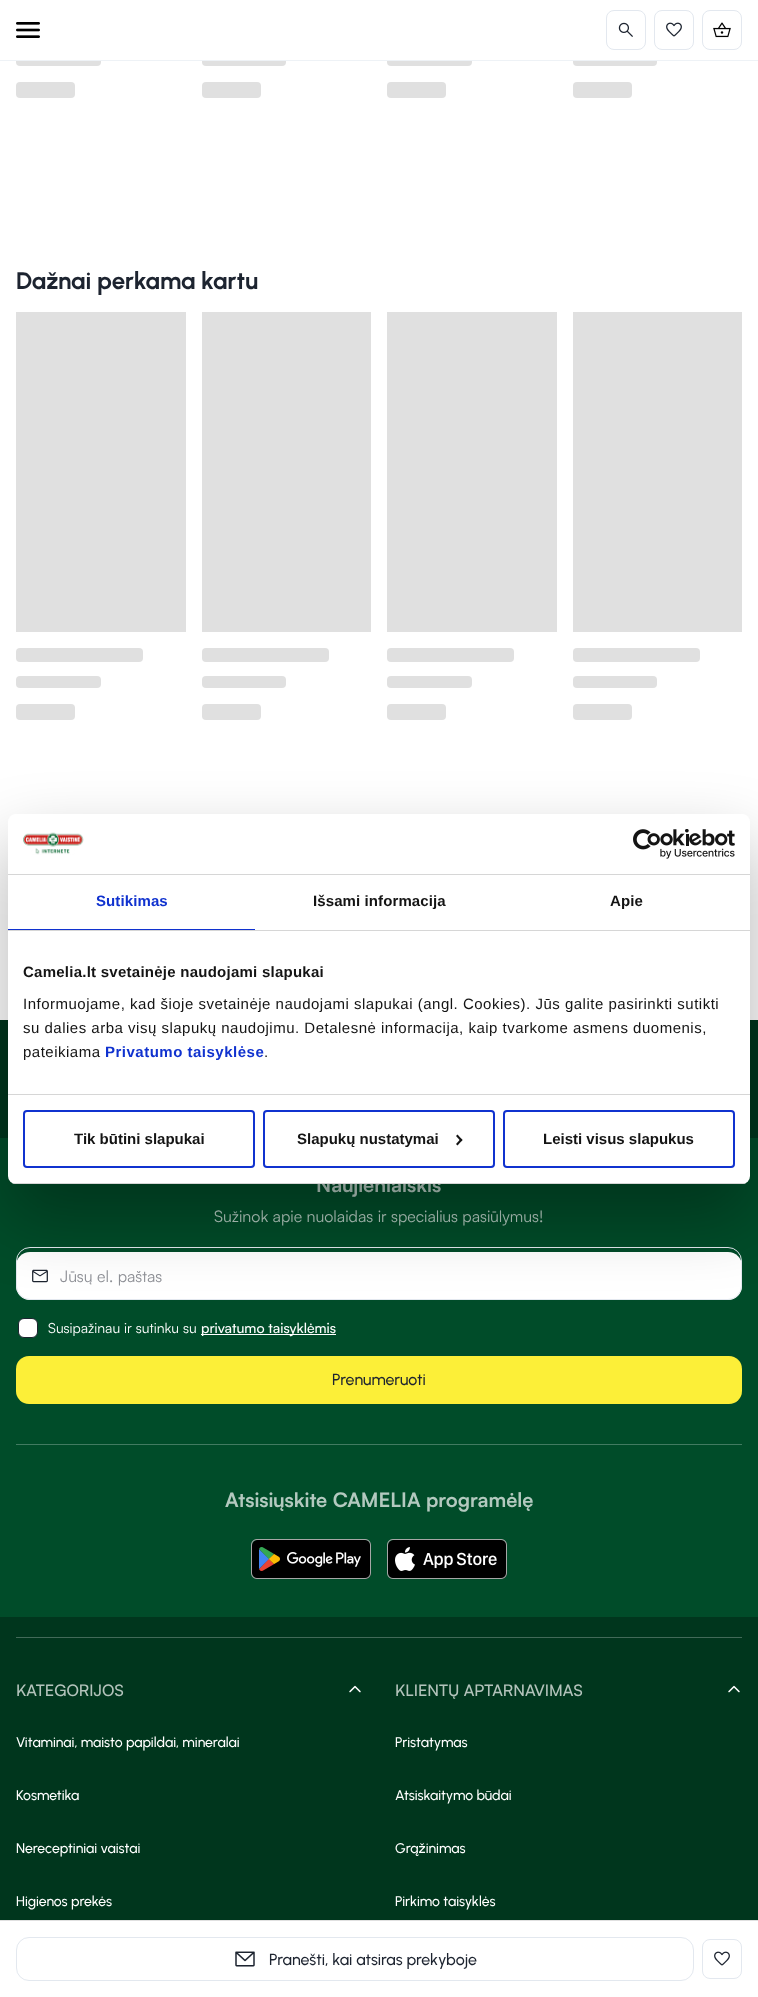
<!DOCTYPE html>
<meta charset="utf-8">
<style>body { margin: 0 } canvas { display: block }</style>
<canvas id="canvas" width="758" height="1997"></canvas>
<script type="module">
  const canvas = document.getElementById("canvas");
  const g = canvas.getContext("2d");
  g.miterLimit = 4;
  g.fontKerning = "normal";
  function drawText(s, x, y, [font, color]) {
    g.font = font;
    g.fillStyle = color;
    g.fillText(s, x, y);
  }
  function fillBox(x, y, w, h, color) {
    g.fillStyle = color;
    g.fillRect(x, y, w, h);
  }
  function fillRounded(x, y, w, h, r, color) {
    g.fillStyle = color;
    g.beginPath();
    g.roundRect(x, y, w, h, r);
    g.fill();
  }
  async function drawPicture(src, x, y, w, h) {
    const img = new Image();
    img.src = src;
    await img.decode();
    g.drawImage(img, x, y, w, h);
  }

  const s1 = ["bold 24px Urbanist", "#1D2430"];
  const s2 = ["500 16px Urbanist", "#1D2430"];
  const s3 = ["bold 20px Satoshi", "#B3C9BF"];
  const s4 = ["16px Satoshi", "#B3C9BF"];
  const s5 = ["16px Satoshi", "#8E9096"];
  const s6 = ["14px Satoshi", "#FFFFFF"];
  const s7 = ["500 14px Satoshi", "#FFFFFF"];
  const s8 = ["500 16px Satoshi", "#B3C3BB"];
  const s9 = ["500 14px Urbanist", "#FFFFFF"];
  const s10 = ["bold 15px Liberation Sans", "#1032CF"];
  const s11 = ["bold 15px Liberation Sans", "#141414"];
  const s12 = ["15px Liberation Sans", "#141414"];

  fillBox(0, 0, 758, 1997, "#FFFFFF");
  fillRounded(16, 54, 85, 12, 4, "#E0E0E0");
  fillRounded(202, 54, 84, 12, 4, "#E0E0E0");
  fillRounded(387, 54, 85, 12, 4, "#E0E0E0");
  fillRounded(573, 54, 84, 12, 4, "#E0E0E0");
  fillBox(16, 54, 641, 6, "#FFFFFF");
  fillBox(0, 60, 758, 1, "#EEF2F6");
  await drawPicture("pic1.png", 16, 22, 24, 16);
  g.beginPath();
  g.roundRect(606.5, 10.5, 39, 39, 7.5);
  g.strokeStyle = "#E3E8EF";
  g.stroke();
  await drawPicture("pic2.png", 618, 22, 15, 15);
  g.beginPath();
  g.roundRect(654.5, 10.5, 39, 39, 7.5);
  g.stroke();
  await drawPicture("pic3.png", 666, 22, 16, 15);
  g.beginPath();
  g.roundRect(702.5, 10.5, 39, 39, 7.5);
  g.stroke();
  await drawPicture("pic4.png", 713, 22, 18, 16);
  fillRounded(16, 82, 59, 16, 4, "#E0E0E0");
  fillRounded(202, 82, 59, 16, 4, "#E0E0E0");
  fillRounded(387, 82, 59, 16, 4, "#E0E0E0");
  fillRounded(573, 82, 59, 16, 4, "#E0E0E0");
  drawText("Dažnai perkama kartu", 16, 289, s1);
  fillBox(16, 312, 170, 320, "#E0E0E0");
  fillRounded(16, 648, 127, 14, 4, "#E0E0E0");
  fillRounded(16, 676, 85, 12, 4, "#E0E0E0");
  fillRounded(16, 704, 59, 16, 4, "#E0E0E0");
  fillBox(202, 312, 169, 320, "#E0E0E0");
  fillRounded(202, 648, 127, 14, 4, "#E0E0E0");
  fillRounded(202, 676, 84, 12, 4, "#E0E0E0");
  fillRounded(202, 704, 59, 16, 4, "#E0E0E0");
  fillBox(387, 312, 170, 320, "#E0E0E0");
  fillRounded(387, 648, 127, 14, 4, "#E0E0E0");
  fillRounded(387, 676, 85, 12, 4, "#E0E0E0");
  fillRounded(387, 704, 59, 16, 4, "#E0E0E0");
  fillBox(573, 312, 169, 320, "#E0E0E0");
  fillRounded(573, 648, 127, 14, 4, "#E0E0E0");
  fillRounded(573, 676, 84, 12, 4, "#E0E0E0");
  fillRounded(573, 704, 59, 16, 4, "#E0E0E0");
  fillBox(0, 1920, 758, 1, "#E0E0E0");
  g.beginPath();
  g.roundRect(16.5, 1937.5, 677, 43, 12.5);
  g.stroke();
  await drawPicture("pic5.png", 235, 1951, 20, 16);
  drawText("Pranešti, kai atsiras prekyboje", 269, 1965, s2);
  g.beginPath();
  g.roundRect(702.5, 1939.5, 39, 39, 7.5);
  g.stroke();
  await drawPicture("pic3.png", 714, 1951, 16, 15);
  fillBox(0, 1020, 758, 900, "#00361D");
  fillBox(0, 1138, 758, 479, "#004C29");
  drawText("Naujienlaiškis", 316, 1192, s3);
  drawText("Sužinok apie nuolaidas ir specialius pasiūlymus!", 214, 1222, s4);
  fillRounded(16, 1252, 726, 48, 14, "#FFFFFF");
  await drawPicture("pic6.png", 32, 1269, 16, 14);
  g.beginPath();
  g.roundRect(16.5, 1247.5, 725, 52, 13.5);
  g.stroke();
  drawText("Jūsų el. paštas", 60, 1282, s5);
  g.fillStyle = "#FFFFFF";
  g.beginPath();
  g.roundRect(18.5, 1318.5, 19, 19, 5.5);
  g.fill();
  g.strokeStyle = "#1D2430";
  g.stroke();
  drawText("Susipažinau ir sutinku su", 48, 1333, s6);
  fillBox(201, 1334, 135, 1, "#FFFFFF");
  drawText("privatumo taisyklėmis", 201, 1333, s7);
  fillRounded(16, 1356, 726, 48, 13, "#FCEF38");
  drawText("Prenumeruoti", 332, 1385, s2);
  fillBox(16, 1444, 726, 1, "#427B61");
  drawText("Atsisiųskite CAMELIA programėlę", 225, 1507, s3);
  await drawPicture("pic7.png", 251, 1539, 120, 40);
  await drawPicture("pic8.png", 387, 1539, 120, 40);
  fillBox(16, 1637, 726, 1, "#426A58");
  drawText("KATEGORIJOS", 16, 1696, s8);
  await drawPicture("pic9.png", 349, 1685, 12, 8);
  drawText("Vitaminai, maisto papildai, mineralai", 16, 1747, s9);
  drawText("Kosmetika", 16, 1800, s9);
  drawText("Nereceptiniai vaistai", 16, 1853, s9);
  drawText("Higienos prekės", 16, 1906, s9);
  drawText("KLIENTŲ APTARNAVIMAS", 395, 1696, s8);
  await drawPicture("pic9.png", 728, 1685, 12, 8);
  drawText("Pristatymas", 395, 1747, s9);
  drawText("Atsiskaitymo būdai", 395, 1800, s9);
  drawText("Grąžinimas", 395, 1853, s9);
  drawText("Pirkimo taisyklės", 395, 1906, s9);
  g.fillStyle = "rgba(0, 0, 0, 0.3)";
  g.filter = "blur(34px)";
  g.beginPath();
  g.roundRect(8, 846, 742, 370, 8);
  g.fill();
  g.filter = "none";
  fillRounded(8, 814, 742, 370, 8, "#FFFFFF");
  fillBox(8, 874, 742, 1, "#D6D6D6");
  await drawPicture("pic10.png", 23, 832, 61, 23);
  await drawPicture("pic11.png", 633, 829, 102, 30);
  fillBox(8, 930, 742, 1, "#D6D6D6");
  fillBox(8, 929, 247, 1, "#1032CF");
  g.letterSpacing = "0.1px";
  drawText("Sutikimas", 96, 906, s10);
  drawText("Išsami informacija", 313, 906, s11);
  drawText("Apie", 610, 906, s11);
  fillBox(8, 1094, 742, 1, "#D6D6D6");
  g.letterSpacing = "0.25px";
  drawText("Camelia.lt svetainėje naudojami slapukai", 23, 977, s11);
  g.letterSpacing = "0.5px";
  drawText("Informuojame, kad šioje svetainėje naudojami slapukai (angl. Cookies). Jūs galite pasirinkti sutikti", 23, 1009, s12);
  drawText("su dalies arba visų slapukų naudojimu. Detalesnė informacija, kaip tvarkome asmens duomenis,", 23, 1033, s12);
  drawText("pateikiama", 23, 1057, s12);
  drawText("Privatumo taisyklėse", 105, 1057, s10);
  drawText(".", 264, 1057, s12);
  g.save();
  g.beginPath();
  g.roundRect(8, 814, 742, 370, 8);
  g.clip();
  fillBox(8, 1183, 742, 1, "#D6D6D6");
  g.restore();
  g.beginPath();
  g.roundRect(24, 1111, 230, 56, 3);
  g.strokeStyle = "#1032CF";
  g.lineWidth = 2;
  g.stroke();
  g.letterSpacing = "0px";
  drawText("Tik būtini slapukai", 74, 1144, s11);
  g.beginPath();
  g.roundRect(264, 1111, 230, 56, 3);
  g.stroke();
  drawText("Slapukų nustatymai", 297, 1144, s11);
  g.beginPath();
  g.moveTo(457.5, 1134.5);
  g.lineTo(462.5, 1140);
  g.lineTo(461, 1141.5);
  g.lineTo(456, 1136);
  g.closePath();
  g.fill();
  g.beginPath();
  g.moveTo(461, 1138.5);
  g.lineTo(462.5, 1140);
  g.lineTo(457.5, 1145.5);
  g.lineTo(456, 1144);
  g.closePath();
  g.fill();
  g.beginPath();
  g.roundRect(504, 1111, 230, 56, 3);
  g.stroke();
  drawText("Leisti visus slapukus", 543, 1144, s11);
</script>
